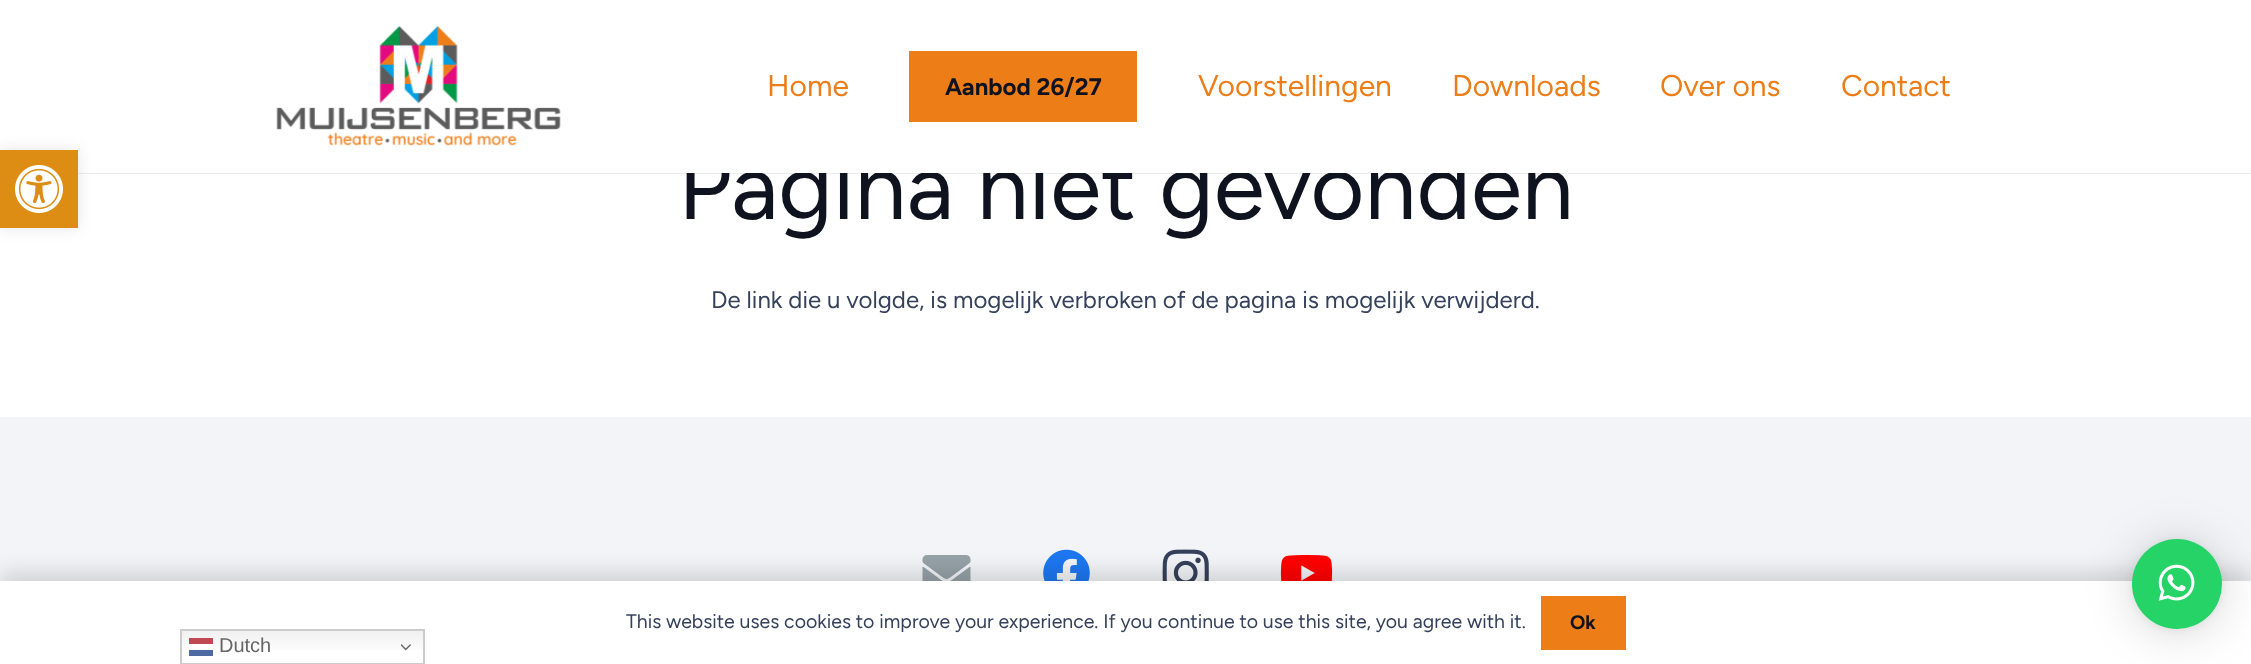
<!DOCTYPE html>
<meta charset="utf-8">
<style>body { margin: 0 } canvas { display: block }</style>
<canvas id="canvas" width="2251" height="664"></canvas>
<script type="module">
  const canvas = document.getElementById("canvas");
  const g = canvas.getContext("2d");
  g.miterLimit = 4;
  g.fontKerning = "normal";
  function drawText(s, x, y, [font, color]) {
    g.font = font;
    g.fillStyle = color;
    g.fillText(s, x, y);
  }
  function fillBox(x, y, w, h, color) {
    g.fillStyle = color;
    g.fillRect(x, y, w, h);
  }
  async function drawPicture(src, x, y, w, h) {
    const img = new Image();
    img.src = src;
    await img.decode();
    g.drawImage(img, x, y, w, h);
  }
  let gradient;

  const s1 = ["300 93px Figtree", "#0F131F"];
  const s2 = ["300 30px Figtree", "#EC7D17"];
  const s3 = ["300 24px 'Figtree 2'", "#0F131F"];
  const s4 = ["300 24px Figtree", "#35415B"];
  const s5 = ["300 19.5px Figtree", "#35415B"];
  const s6 = ["300 19.5px 'Figtree 2'", "#0F131F"];
  const s7 = ["20px Liberation Sans", "#666666"];

  fillBox(0, 0, 2251, 664, "#FFFFFF");
  g.fillStyle = "rgba(0, 0, 0, 0.08)";
  g.beginPath();
  g.moveTo(0, 172);
  g.lineTo(0, 174);
  g.lineTo(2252, 174);
  g.lineTo(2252, 2);
  g.lineTo(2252, 172);
  g.closePath();
  g.fill();
  drawText("Pagina niet gevonden", 678, 219, s1);
  fillBox(0, 152, 2251, 21, "#FFFFFF");
  g.fillStyle = "rgba(0, 0, 0, 0.1)";
  g.filter = "blur(7.5px)";
  g.beginPath();
  g.rect(0, 150, 78, 78);
  g.fill();
  g.filter = "none";
  fillBox(0, 150, 78, 78, "#DD8D13");
  await drawPicture("pic1.png", 15, 165, 48, 48);
  await drawPicture("pic2.png", 276, 26, 285, 120);
  drawText("Home", 767, 96, s2);
  fillBox(909, 51, 228, 71, "#EC7D17");
  drawText("Aanbod 26/27", 945, 95, s3);
  drawText("Voorstellingen", 1198, 96, s2);
  drawText("Downloads", 1452, 96, s2);
  drawText("Over ons", 1660, 96, s2);
  drawText("Contact", 1841, 96, s2);
  drawText("De link die u volgde, is mogelijk verbroken of de pagina is mogelijk verwijderd.", 711, 308, s4);
  fillBox(0, 417, 2251, 164, "#F2F4F7");
  await drawPicture("pic3.png", 922, 555, 49, 26);
  await drawPicture("pic4.png", 1043, 549, 47, 32);
  await drawPicture("pic5.png", 1162, 549, 47, 32);
  await drawPicture("pic6.png", 1280, 555, 53, 26);
  g.fillStyle = "rgba(0, 0, 0, 0.15)";
  g.filter = "blur(11px)";
  g.beginPath();
  g.rect(0, 573, 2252, 84);
  g.fill();
  g.filter = "none";
  fillBox(0, 581, 2251, 83, "#FFFFFF");
  drawText("This website uses cookies to improve your experience. If you continue to use this site, you agree with it.", 626, 628, s5);
  fillBox(1541, 596, 85, 54, "#EC7D17");
  drawText("Ok", 1570, 629, s6);
  g.fillStyle = "rgba(0, 0, 0, 0.16)";
  g.filter = "blur(24px)";
  g.beginPath();
  g.roundRect(2132, 542, 90, 90, 45);
  g.fill();
  g.filter = "none";
  g.fillStyle = "rgba(0, 0, 0, 0.06)";
  g.filter = "blur(4.5px)";
  g.beginPath();
  g.roundRect(2132, 540, 90, 90, 45);
  g.fill();
  g.filter = "none";
  g.fillStyle = "#25D366";
  g.beginPath();
  g.arc(2177, 584, 45, 0, Math.PI * 2);
  g.fill();
  await drawPicture("pic7.png", 2158, 564, 37, 37);
  gradient = g.createLinearGradient(302, 629, 302, 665);
  gradient.addColorStop(0, "#EFEFEF");
  gradient.addColorStop(0.7, "#FFFFFF");
  g.fillStyle = gradient;
  g.fillRect(182, 631, 241, 19);
  gradient = g.createLinearGradient(302, 629, 302, 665);
  gradient.addColorStop(0, "#FCFCFC");
  gradient.addColorStop(0.7, "#FFFFFF");
  g.fillStyle = gradient;
  g.fillRect(189, 644, 24, 5);
  g.strokeStyle = "#CCCCCC";
  g.lineWidth = 2;
  g.strokeRect(181, 630, 243, 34);
  fillBox(189, 638, 24, 6, "#BE4953");
  drawText("Dutch", 219, 652, s7);
  await drawPicture("pic8.png", 401, 644, 10, 7);
  fillBox(189, 650, 24, 6, "#4D6BA2");
</script>
